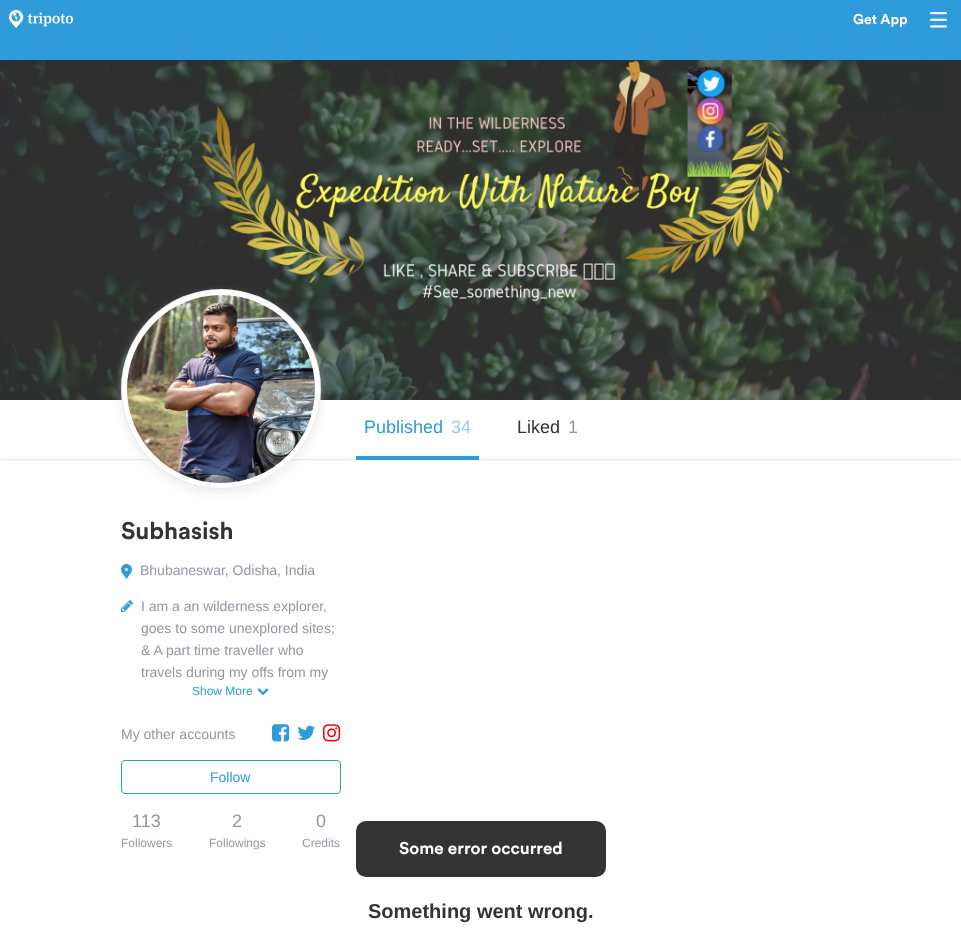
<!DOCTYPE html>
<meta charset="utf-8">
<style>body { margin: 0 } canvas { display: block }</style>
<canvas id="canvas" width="961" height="935"></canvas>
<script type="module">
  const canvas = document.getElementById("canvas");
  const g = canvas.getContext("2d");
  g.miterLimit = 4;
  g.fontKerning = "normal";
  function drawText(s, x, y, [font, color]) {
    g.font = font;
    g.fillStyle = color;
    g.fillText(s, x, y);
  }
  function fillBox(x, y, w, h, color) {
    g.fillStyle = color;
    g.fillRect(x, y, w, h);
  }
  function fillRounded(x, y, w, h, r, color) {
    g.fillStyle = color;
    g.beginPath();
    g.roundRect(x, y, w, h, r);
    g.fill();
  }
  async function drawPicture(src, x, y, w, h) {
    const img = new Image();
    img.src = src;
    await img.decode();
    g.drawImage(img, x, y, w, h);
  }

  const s1 = ["bold 14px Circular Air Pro", "#FFFFFF"];
  const s2 = ["18px Liberation Sans", "#2F9BDB"];
  const s3 = ["18px Liberation Sans", "#97CDED"];
  const s4 = ["18px Liberation Sans", "#333333"];
  const s5 = ["18px Liberation Sans", "#999999"];
  const s6 = ["bold 24px Circular Air Pro", "#333333"];
  const s7 = ["14px Liberation Sans", "#9197A3"];
  const s8 = ["12px Liberation Sans", "#2F9BDB"];
  const s9 = ["14px Liberation Sans", "#2F9BDB"];
  const s10 = ["18px Liberation Sans", "#9197A3"];
  const s11 = ["12px Liberation Sans", "#9197A3"];
  const s12 = ["bold 20px Liberation Sans", "#333333"];
  const s13 = ["bold 17px Circular Air Pro", "#FFFFFF"];

  fillBox(0, 0, 961, 935, "#FFFFFF");
  fillBox(0, 0, 961, 60, "#2F9BDB");
  await drawPicture("pic1.png", 9, 10, 64, 18);
  drawText("Get App", 853, 24, s1);
  await drawPicture("pic2.png", 930, 12, 17, 16);
  g.save();
  g.beginPath();
  g.rect(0, 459, 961, 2);
  g.clip();
  g.fillStyle = "rgba(0, 0, 0, 0.25)";
  g.filter = "blur(1.5px)";
  g.beginPath();
  g.rect(0, 400, 961, 59);
  g.fill();
  g.filter = "none";
  g.restore();
  await drawPicture("pic3.png", 0, 60, 961, 340);
  fillBox(356, 456, 123, 4, "#2F9BDB");
  drawText("Published", 364, 433, s2);
  drawText("34", 451, 433, s3);
  drawText("Liked", 517, 433, s4);
  drawText("1", 568, 433, s5);
  g.fillStyle = "rgba(221, 221, 221, 0.5)";
  g.filter = "blur(5px)";
  g.beginPath();
  g.roundRect(121, 294, 200, 200, 100);
  g.fill();
  g.filter = "none";
  g.fillStyle = "#FFFFFF";
  g.beginPath();
  g.arc(221, 389, 100, 0, Math.PI * 2);
  g.fill();
  g.beginPath();
  g.arc(221, 389, 99.5, 0, Math.PI * 2);
  g.strokeStyle = "rgba(145, 151, 163, 0.2)";
  g.stroke();
  await drawPicture("pic4.png", 127, 295, 188, 188);
  drawText("Subhasish", 121, 539, s6);
  await drawPicture("pic5.png", 121, 564, 11, 15);
  drawText("Bhubaneswar, Odisha, India", 140, 575, s7);
  await drawPicture("pic6.png", 121, 600, 12, 12);
  drawText("I am a an wilderness explorer,", 141, 611, s7);
  drawText("goes to some unexplored sites;", 141, 633, s7);
  drawText("& A part time traveller who", 141, 655, s7);
  drawText("travels during my offs from my", 141, 677, s7);
  drawText("Show More", 192, 695, s8);
  await drawPicture("pic7.png", 257, 688, 12, 8);
  drawText("My other accounts", 121, 739, s7);
  await drawPicture("pic8.png", 272, 724, 18, 18);
  await drawPicture("pic9.png", 297, 725, 18, 15);
  await drawPicture("pic10.png", 323, 724, 18, 18);
  g.beginPath();
  g.roundRect(121.5, 760.5, 219, 33, 3.5);
  g.strokeStyle = "#2F9BDB";
  g.stroke();
  drawText("Follow", 210, 782, s9);
  drawText("113", 132, 827, s10);
  drawText("Followers", 121, 847, s11);
  drawText("2", 232, 827, s10);
  drawText("Followings", 209, 847, s11);
  drawText("0", 316, 827, s10);
  drawText("Credits", 302, 847, s11);
  drawText("Something went wrong.", 368, 918, s12);
  fillRounded(356, 821, 250, 56, 10, "#333333");
  drawText("Some error occurred", 399, 854, s13);
</script>
